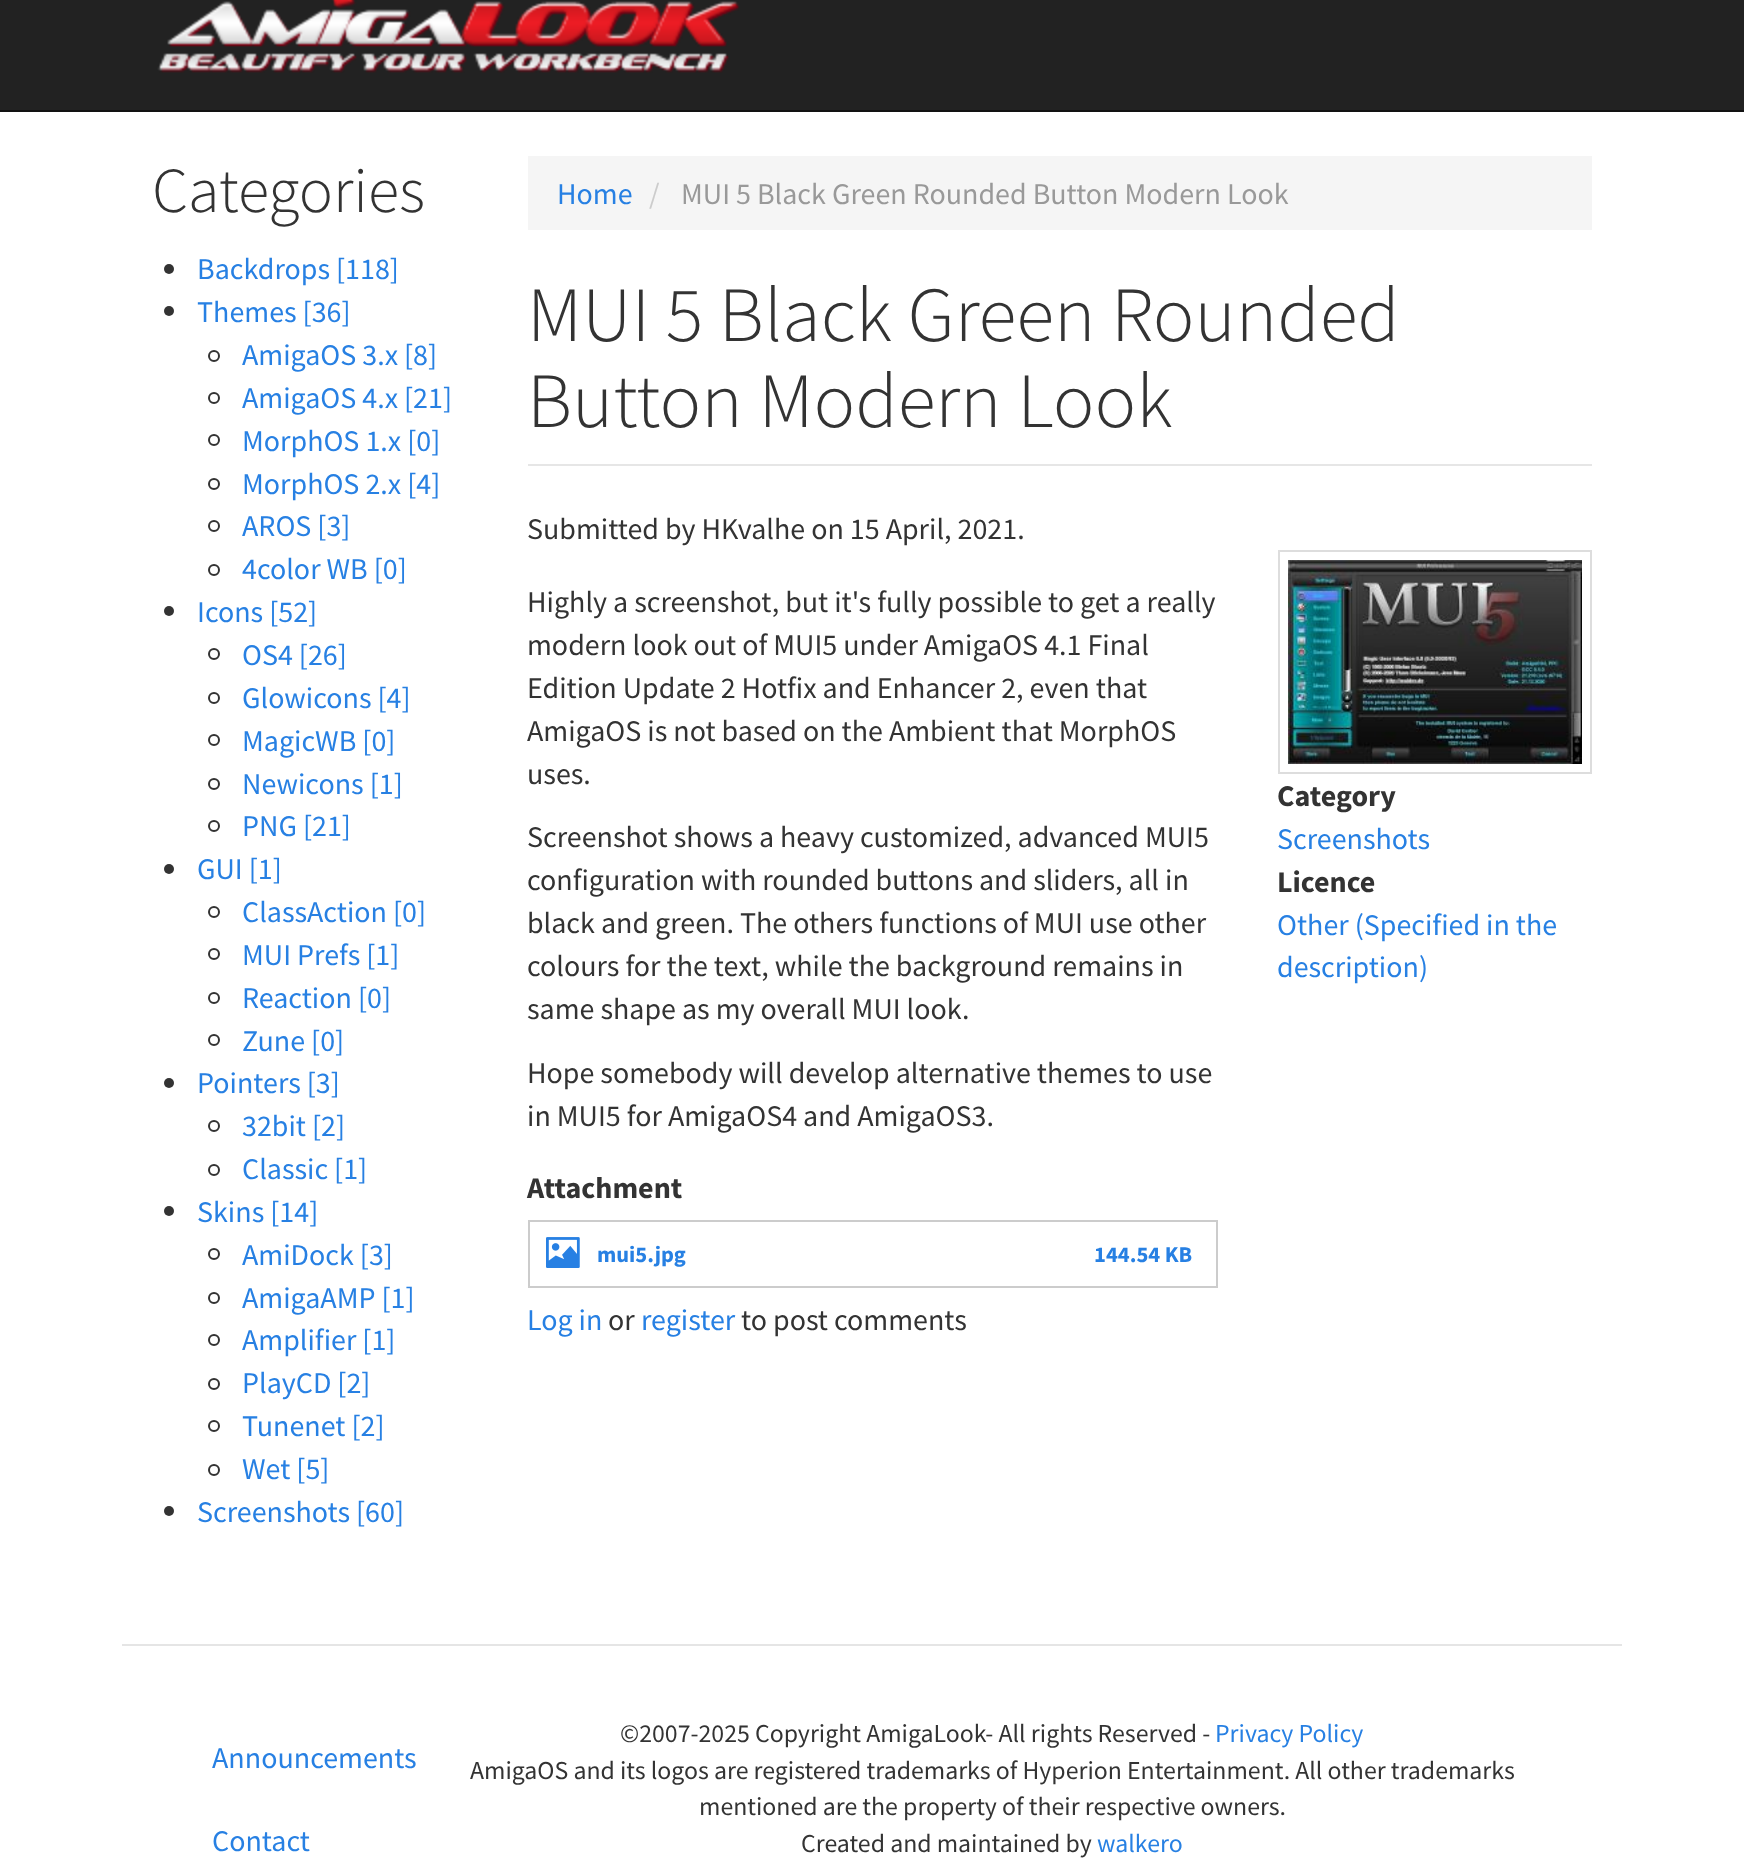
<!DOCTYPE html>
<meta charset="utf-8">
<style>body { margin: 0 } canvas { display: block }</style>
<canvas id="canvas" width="1744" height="1874"></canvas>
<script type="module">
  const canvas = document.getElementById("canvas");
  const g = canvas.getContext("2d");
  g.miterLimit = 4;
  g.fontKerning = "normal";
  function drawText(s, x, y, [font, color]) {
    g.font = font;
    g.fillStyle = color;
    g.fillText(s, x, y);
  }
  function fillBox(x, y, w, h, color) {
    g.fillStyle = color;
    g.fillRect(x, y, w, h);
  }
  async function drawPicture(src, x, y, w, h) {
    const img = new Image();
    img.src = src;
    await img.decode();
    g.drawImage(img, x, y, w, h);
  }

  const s1 = ["300 64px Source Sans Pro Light", "#333333"];
  const s2 = ["30px Source Sans Pro", "#2780E3"];
  const s3 = ["30px Source Sans Pro", "#CCCCCC"];
  const s4 = ["30px Source Sans Pro", "#999999"];
  const s5 = ["300 78px Source Sans Pro Light", "#333333"];
  const s6 = ["30px Source Sans Pro", "#333333"];
  const s7 = ["bold 30px Source Sans Pro", "#333333"];
  const s8 = ["bold 22.5px Source Sans Pro", "#2780E3"];
  const s9 = ["25.8px Source Sans Pro", "#333333"];
  const s10 = ["25.8px Source Sans Pro", "#2780E3"];

  fillBox(0, 0, 1744, 1874, "#FFFFFF");
  fillBox(0, 0, 1744, 110, "#222222");
  fillBox(0, 110, 1744, 2, "#121212");
  await drawPicture("pic1.png", 157, 0, 583, 73);
  drawText("Categories", 152, 212, s1);
  g.beginPath();
  g.arc(169, 269, 5, 0, Math.PI * 2);
  g.fill();
  drawText("Backdrops [118]", 197, 279, s2);
  g.fillStyle = "#333333";
  g.beginPath();
  g.arc(169, 311, 5, 0, Math.PI * 2);
  g.fill();
  drawText("Themes [36]", 197, 322, s2);
  g.beginPath();
  g.arc(214, 356, 5, 0, Math.PI * 2);
  g.strokeStyle = "#333333";
  g.lineWidth = 2;
  g.stroke();
  drawText("AmigaOS 3.x [8]", 242, 365, s2);
  g.beginPath();
  g.arc(214, 398, 5, 0, Math.PI * 2);
  g.stroke();
  drawText("AmigaOS 4.x [21]", 242, 408, s2);
  g.beginPath();
  g.arc(214, 440, 5, 0, Math.PI * 2);
  g.stroke();
  drawText("MorphOS 1.x [0]", 242, 451, s2);
  g.beginPath();
  g.arc(214, 484, 5, 0, Math.PI * 2);
  g.stroke();
  drawText("MorphOS 2.x [4]", 242, 494, s2);
  g.beginPath();
  g.arc(214, 526, 5, 0, Math.PI * 2);
  g.stroke();
  drawText("AROS [3]", 242, 536, s2);
  g.beginPath();
  g.arc(214, 570, 5, 0, Math.PI * 2);
  g.stroke();
  drawText("4color WB [0]", 242, 579, s2);
  g.fillStyle = "#333333";
  g.beginPath();
  g.arc(169, 611, 5, 0, Math.PI * 2);
  g.fill();
  drawText("Icons [52]", 197, 622, s2);
  g.beginPath();
  g.arc(214, 654, 5, 0, Math.PI * 2);
  g.stroke();
  drawText("OS4 [26]", 242, 665, s2);
  g.beginPath();
  g.arc(214, 698, 5, 0, Math.PI * 2);
  g.stroke();
  drawText("Glowicons [4]", 242, 708, s2);
  g.beginPath();
  g.arc(214, 740, 5, 0, Math.PI * 2);
  g.stroke();
  drawText("MagicWB [0]", 242, 751, s2);
  g.beginPath();
  g.arc(214, 784, 5, 0, Math.PI * 2);
  g.stroke();
  drawText("Newicons [1]", 242, 794, s2);
  g.beginPath();
  g.arc(214, 826, 5, 0, Math.PI * 2);
  g.stroke();
  drawText("PNG [21]", 242, 836, s2);
  g.fillStyle = "#333333";
  g.beginPath();
  g.arc(169, 869, 5, 0, Math.PI * 2);
  g.fill();
  drawText("GUI [1]", 197, 879, s2);
  g.beginPath();
  g.arc(214, 912, 5, 0, Math.PI * 2);
  g.stroke();
  drawText("ClassAction [0]", 242, 922, s2);
  g.beginPath();
  g.arc(214, 954, 5, 0, Math.PI * 2);
  g.stroke();
  drawText("MUI Prefs [1]", 242, 965, s2);
  g.beginPath();
  g.arc(214, 998, 5, 0, Math.PI * 2);
  g.stroke();
  drawText("Reaction [0]", 242, 1008, s2);
  g.beginPath();
  g.arc(214, 1040, 5, 0, Math.PI * 2);
  g.stroke();
  drawText("Zune [0]", 242, 1051, s2);
  g.fillStyle = "#333333";
  g.beginPath();
  g.arc(169, 1083, 5, 0, Math.PI * 2);
  g.fill();
  drawText("Pointers [3]", 197, 1093, s2);
  g.beginPath();
  g.arc(214, 1126, 5, 0, Math.PI * 2);
  g.stroke();
  drawText("32bit [2]", 242, 1136, s2);
  g.beginPath();
  g.arc(214, 1170, 5, 0, Math.PI * 2);
  g.stroke();
  drawText("Classic [1]", 242, 1179, s2);
  g.fillStyle = "#333333";
  g.beginPath();
  g.arc(169, 1211, 5, 0, Math.PI * 2);
  g.fill();
  drawText("Skins [14]", 197, 1222, s2);
  g.beginPath();
  g.arc(214, 1254, 5, 0, Math.PI * 2);
  g.stroke();
  drawText("AmiDock [3]", 242, 1265, s2);
  g.beginPath();
  g.arc(214, 1298, 5, 0, Math.PI * 2);
  g.stroke();
  drawText("AmigaAMP [1]", 242, 1308, s2);
  g.beginPath();
  g.arc(214, 1340, 5, 0, Math.PI * 2);
  g.stroke();
  drawText("Amplifier [1]", 242, 1350, s2);
  g.beginPath();
  g.arc(214, 1384, 5, 0, Math.PI * 2);
  g.stroke();
  drawText("PlayCD [2]", 242, 1393, s2);
  g.beginPath();
  g.arc(214, 1426, 5, 0, Math.PI * 2);
  g.stroke();
  drawText("Tunenet [2]", 242, 1436, s2);
  g.beginPath();
  g.arc(214, 1470, 5, 0, Math.PI * 2);
  g.stroke();
  drawText("Wet [5]", 242, 1479, s2);
  g.fillStyle = "#333333";
  g.beginPath();
  g.arc(169, 1511, 5, 0, Math.PI * 2);
  g.fill();
  drawText("Screenshots [60]", 197, 1522, s2);
  fillBox(528, 156, 1064, 74, "#F5F5F5");
  drawText("Home", 557, 204, s2);
  drawText("/", 649, 204, s3);
  drawText("MUI 5 Black Green Rounded Button Modern Look", 681, 204, s4);
  fillBox(528, 464, 1064, 2, "#E6E6E6");
  drawText("MUI 5 Black Green Rounded", 527, 341, s5);
  drawText("Button Modern Look", 527, 427, s5);
  drawText("Submitted by HKvalhe on 15 April, 2021.", 527, 539, s6);
  drawText("Highly a screenshot, but it's fully possible to get a really", 527, 612, s6);
  drawText("modern look out of MUI5 under AmigaOS 4.1 Final", 527, 655, s6);
  drawText("Edition Update 2 Hotfix and Enhancer 2, even that", 527, 698, s6);
  drawText("AmigaOS is not based on the Ambient that MorphOS", 527, 741, s6);
  drawText("uses.", 527, 784, s6);
  drawText("Screenshot shows a heavy customized, advanced MUI5", 527, 847, s6);
  drawText("configuration with rounded buttons and sliders, all in", 527, 890, s6);
  drawText("black and green. The others functions of MUI use other", 527, 933, s6);
  drawText("colours for the text, while the background remains in", 527, 976, s6);
  drawText("same shape as my overall MUI look.", 527, 1019, s6);
  drawText("Hope somebody will develop alternative themes to use", 527, 1083, s6);
  drawText("in MUI5 for AmigaOS4 and AmigaOS3.", 527, 1126, s6);
  drawText("Attachment", 527, 1198, s7);
  fillBox(528, 1220, 690, 2, "#CCCCCC");
  fillBox(528, 1286, 544, 2, "#CCCCCC");
  fillBox(528, 1220, 2, 68, "#CCCCCC");
  await drawPicture("pic2.png", 546, 1237, 34, 31);
  drawText("mui5.jpg", 597, 1262, s8);
  fillBox(1216, 1220, 2, 68, "#CCCCCC");
  fillBox(1072, 1286, 146, 2, "#CCCCCC");
  drawText("144.54 KB", 1094, 1262, s8);
  drawText("Log in", 527, 1330, s2);
  drawText("or", 608, 1330, s6);
  drawText("register", 641, 1330, s2);
  drawText("to post comments", 741, 1330, s6);
  g.strokeStyle = "#DDDDDD";
  g.strokeRect(1279, 551, 312, 222);
  await drawPicture("pic3.png", 1288, 560, 294, 204);
  drawText("Category", 1277, 806, s7);
  drawText("Screenshots", 1277, 849, s2);
  drawText("Licence", 1277, 892, s7);
  drawText("Other (Specified in the", 1277, 935, s2);
  drawText("description)", 1277, 977, s2);
  fillBox(122, 1644, 1500, 2, "#E5E5E5");
  drawText("Announcements", 212, 1768, s2);
  drawText("Contact", 212, 1851, s2);
  drawText("©2007-2025 Copyright AmigaLook- All rights Reserved -", 620, 1742, s9);
  drawText("Privacy Policy", 1215, 1742, s10);
  drawText("AmigaOS and its logos are registered trademarks of Hyperion Entertainment. All other trademarks", 470, 1779, s9);
  drawText("mentioned are the property of their respective owners.", 699, 1815, s9);
  drawText("Created and maintained by", 801, 1852, s9);
  drawText("walkero", 1097, 1852, s10);
</script>
